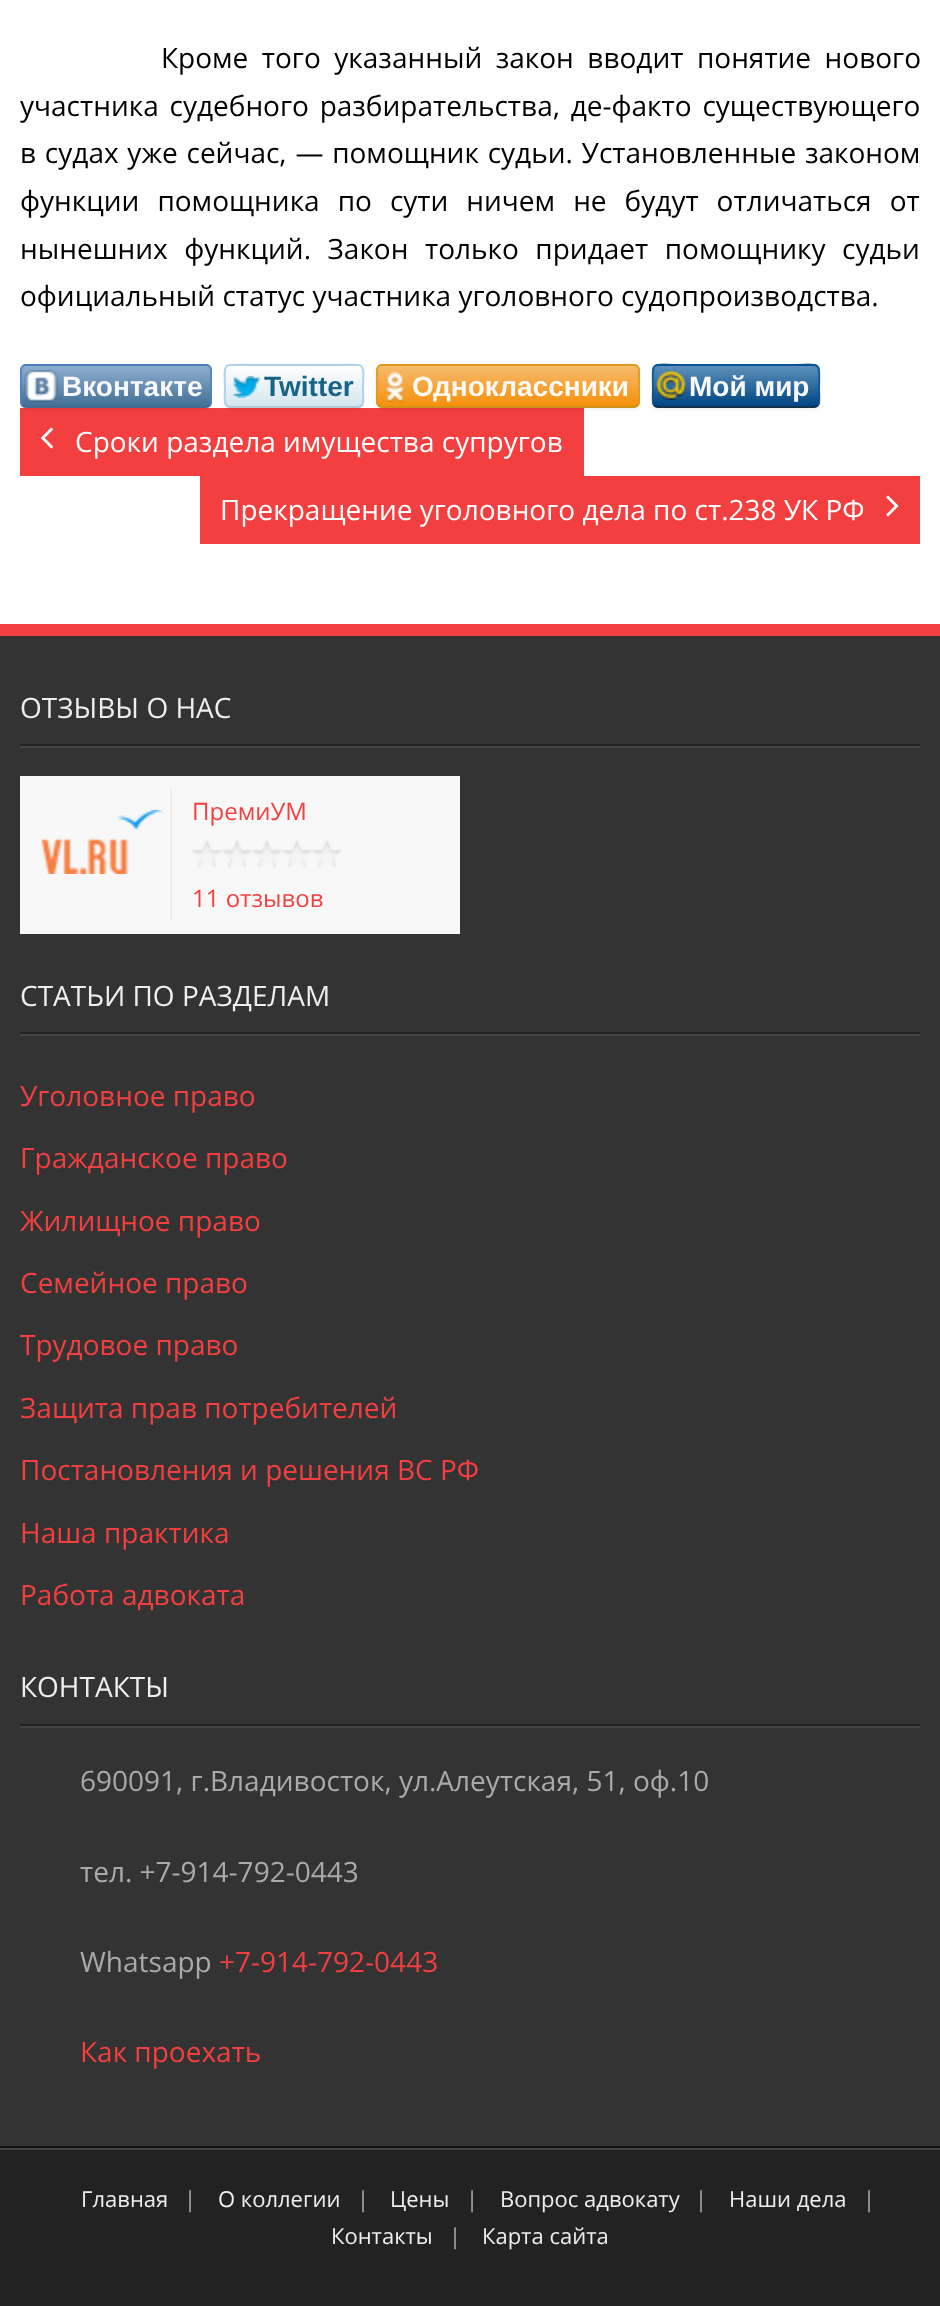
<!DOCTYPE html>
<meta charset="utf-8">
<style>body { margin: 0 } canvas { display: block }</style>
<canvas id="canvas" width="940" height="2306"></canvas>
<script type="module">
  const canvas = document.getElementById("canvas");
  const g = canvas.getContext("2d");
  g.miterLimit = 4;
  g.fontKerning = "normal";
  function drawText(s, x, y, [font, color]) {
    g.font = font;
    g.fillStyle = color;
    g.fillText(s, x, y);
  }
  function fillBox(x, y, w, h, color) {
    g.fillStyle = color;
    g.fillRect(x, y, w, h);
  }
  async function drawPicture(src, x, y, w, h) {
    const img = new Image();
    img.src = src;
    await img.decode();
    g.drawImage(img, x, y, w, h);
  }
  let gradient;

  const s1 = ["28px Open Sans", "#000000"];
  const s2 = ["bold 28px Liberation Sans", "#F7F9FB"];
  const s3 = ["bold 28px Liberation Sans", "#186487"];
  const s4 = ["bold 28px Liberation Sans", "#FFFAF5"];
  const s5 = ["28px Open Sans", "#FFFFFF"];
  const s6 = ["28px Open Sans", "#EEEEEE"];
  const s7 = ["24px Open Sans", "#F33F3F"];
  const s8 = ["28px Open Sans", "#F33F3F"];
  const s9 = ["28px Open Sans", "#AAAAAA"];
  const s10 = ["22px Open Sans", "#EEEEEE"];
  const s11 = ["22px Open Sans", "#AAAAAA"];

  fillBox(0, 0, 940, 2306, "#FFFFFF");
  g.wordSpacing = "6.25px";
  drawText("Кроме того указанный закон вводит понятие нового", 161, 68, s1);
  g.wordSpacing = "3.5px";
  drawText("участника судебного разбирательства, де-факто существующего", 20, 116, s1);
  g.wordSpacing = "1.5px";
  drawText("в судах уже сейчас, — помощник судьи. Установленные законом", 20, 163, s1);
  g.wordSpacing = "10.75px";
  drawText("функции помощника по сути ничем не будут отличаться от", 20, 211, s1);
  g.wordSpacing = "9.25px";
  drawText("нынешних функций. Закон только придает помощнику судьи", 20, 259, s1);
  g.wordSpacing = "0px";
  drawText("официальный статус участника уголовного судопроизводства.", 20, 306, s1);
  fillBox(20, 408, 564, 68, "#F33F3F");
  g.fillStyle = "rgba(0, 0, 0, 0.05)";
  g.filter = "blur(1px)";
  g.beginPath();
  g.roundRect(20, 366, 192, 44, 6);
  g.fill();
  g.filter = "none";
  g.save();
  g.beginPath();
  g.roundRect(20, 364, 192, 44, 6);
  g.clip();
  gradient = g.createLinearGradient(116, 326, 116, 366);
  gradient.addColorStop(0, "#8FAECF");
  gradient.addColorStop(1, "#436F96");
  g.fillStyle = gradient;
  g.fillRect(20, 364, 192, 2);
  gradient = g.createLinearGradient(116, 366, 116, 406);
  gradient.addColorStop(0, "#8FAECF");
  gradient.addColorStop(1, "#436F96");
  g.fillStyle = gradient;
  g.fillRect(20, 366, 192, 40);
  gradient = g.createLinearGradient(116, 406, 116, 446);
  gradient.addColorStop(0, "#8FAECF");
  gradient.addColorStop(1, "#436F96");
  g.fillStyle = gradient;
  g.fillRect(20, 406, 192, 2);
  g.restore();
  g.beginPath();
  g.moveTo(209.5, 405.5);
  g.bezierCurveTo(208.5, 406.5, 207.5, 407, 206, 407);
  g.lineTo(26, 407);
  g.bezierCurveTo(24.5, 407, 23.5, 406.5, 22.5, 405.5);
  g.strokeStyle = "rgba(52, 88, 127, 0.8)";
  g.lineWidth = 2;
  g.stroke();
  g.beginPath();
  g.moveTo(22.5, 405.5);
  g.bezierCurveTo(21.5, 404.5, 21, 403.5, 21, 402);
  g.lineTo(21, 370);
  g.bezierCurveTo(21, 368.5, 21.5, 367.5, 22.5, 366.5);
  g.bezierCurveTo(23.5, 365.5, 24.5, 365, 26, 365);
  g.lineTo(206, 365);
  g.bezierCurveTo(207.5, 365, 208.5, 365.5, 209.5, 366.5);
  g.bezierCurveTo(210.5, 367.5, 211, 368.5, 211, 370);
  g.lineTo(211, 402);
  g.bezierCurveTo(211, 403.5, 210.5, 404.5, 209.5, 405.5);
  g.strokeStyle = "rgba(78, 131, 193, 0.8)";
  g.stroke();
  await drawPicture("pic1.png", 24, 370, 34, 32);
  drawText("Вконтакте", 62, 396, s2);
  g.fillStyle = "rgba(0, 0, 0, 0.05)";
  g.filter = "blur(1px)";
  g.beginPath();
  g.roundRect(224, 366, 140, 44, 6);
  g.fill();
  g.filter = "none";
  g.save();
  g.beginPath();
  g.roundRect(224, 364, 140, 44, 6);
  g.clip();
  gradient = g.createLinearGradient(294, 326, 294, 366);
  gradient.addColorStop(0, "#FFFFFF");
  gradient.addColorStop(1, "#D5E6EF");
  g.fillStyle = gradient;
  g.fillRect(224, 364, 140, 2);
  gradient = g.createLinearGradient(294, 366, 294, 406);
  gradient.addColorStop(0, "#FFFFFF");
  gradient.addColorStop(1, "#D5E6EF");
  g.fillStyle = gradient;
  g.fillRect(224, 366, 140, 40);
  gradient = g.createLinearGradient(294, 406, 294, 446);
  gradient.addColorStop(0, "#FFFFFF");
  gradient.addColorStop(1, "#D5E6EF");
  g.fillStyle = gradient;
  g.fillRect(224, 406, 140, 2);
  g.restore();
  g.beginPath();
  g.moveTo(361.5, 405.5);
  g.bezierCurveTo(360.5, 406.5, 359.5, 407, 358, 407);
  g.lineTo(230, 407);
  g.bezierCurveTo(228.5, 407, 227.5, 406.5, 226.5, 405.5);
  g.strokeStyle = "rgba(158, 186, 204, 0.8)";
  g.stroke();
  g.beginPath();
  g.moveTo(226.5, 405.5);
  g.bezierCurveTo(223.5, 402.5, 225, 394.5, 225, 391.5);
  g.bezierCurveTo(225, 360.5, 219.5, 365, 251.5, 365);
  g.lineTo(336.5, 365);
  g.bezierCurveTo(368.5, 365, 363, 360.5, 363, 391.5);
  g.bezierCurveTo(363, 394.5, 364.5, 402.5, 361.5, 405.5);
  g.strokeStyle = "rgba(164, 204, 229, 0.8)";
  g.stroke();
  await drawPicture("pic2.png", 232, 376, 28, 22);
  drawText("Twitter", 264, 396, s3);
  g.fillStyle = "rgba(0, 0, 0, 0.05)";
  g.filter = "blur(1px)";
  g.beginPath();
  g.roundRect(376, 366, 264, 44, 6);
  g.fill();
  g.filter = "none";
  g.save();
  g.beginPath();
  g.roundRect(376, 364, 264, 44, 6);
  g.clip();
  gradient = g.createLinearGradient(508, 326, 508, 366);
  gradient.addColorStop(0, "#F6BB6D");
  gradient.addColorStop(1, "#F6900B");
  g.fillStyle = gradient;
  g.fillRect(376, 364, 264, 2);
  gradient = g.createLinearGradient(508, 366, 508, 406);
  gradient.addColorStop(0, "#F6BB6D");
  gradient.addColorStop(1, "#F6900B");
  g.fillStyle = gradient;
  g.fillRect(376, 366, 264, 40);
  gradient = g.createLinearGradient(508, 406, 508, 446);
  gradient.addColorStop(0, "#F6BB6D");
  gradient.addColorStop(1, "#F6900B");
  g.fillStyle = gradient;
  g.fillRect(376, 406, 264, 2);
  g.restore();
  g.beginPath();
  g.moveTo(637.5, 405.5);
  g.lineTo(634.5, 407);
  g.lineTo(382, 407);
  g.bezierCurveTo(380.5, 407, 379.5, 406.5, 378.5, 405.5);
  g.strokeStyle = "rgba(197, 137, 7, 0.8)";
  g.stroke();
  g.beginPath();
  g.moveTo(378.5, 405.5);
  g.bezierCurveTo(377.5, 404.5, 377, 403.5, 377, 402);
  g.lineTo(377, 370);
  g.bezierCurveTo(377, 368.5, 377.5, 367.5, 378.5, 366.5);
  g.bezierCurveTo(379.5, 365.5, 380.5, 365, 382, 365);
  g.lineTo(634, 365);
  g.bezierCurveTo(635.5, 365, 636.5, 365.5, 637.5, 366.5);
  g.bezierCurveTo(638.5, 367.5, 639, 368.5, 639, 370);
  g.lineTo(639, 402);
  g.bezierCurveTo(639, 403.5, 638.5, 404.5, 637.5, 405.5);
  g.strokeStyle = "rgba(217, 154, 38, 0.8)";
  g.stroke();
  await drawPicture("pic3.png", 386, 372, 18, 30);
  drawText("Одноклассники", 412, 396, s4);
  g.fillStyle = "rgba(0, 0, 0, 0.05)";
  g.filter = "blur(1px)";
  g.beginPath();
  g.roundRect(652, 366, 168, 44, 6);
  g.fill();
  g.filter = "none";
  g.save();
  g.beginPath();
  g.roundRect(652, 364, 168, 44, 6);
  g.clip();
  gradient = g.createLinearGradient(736, 326, 736, 366);
  gradient.addColorStop(0, "#5D90BA");
  gradient.addColorStop(1, "#004584");
  g.fillStyle = gradient;
  g.fillRect(652, 364, 168, 2);
  gradient = g.createLinearGradient(736, 366, 736, 406);
  gradient.addColorStop(0, "#5D90BA");
  gradient.addColorStop(1, "#004584");
  g.fillStyle = gradient;
  g.fillRect(652, 366, 168, 40);
  gradient = g.createLinearGradient(736, 406, 736, 446);
  gradient.addColorStop(0, "#5D90BA");
  gradient.addColorStop(1, "#004584");
  g.fillStyle = gradient;
  g.fillRect(652, 406, 168, 2);
  g.restore();
  g.beginPath();
  g.moveTo(817.5, 405.5);
  g.bezierCurveTo(816.5, 406.5, 815.5, 407, 814, 407);
  g.lineTo(658, 407);
  g.bezierCurveTo(656.5, 407, 655.5, 406.5, 654.5, 405.5);
  g.strokeStyle = "rgba(3, 27, 48, 0.8)";
  g.stroke();
  g.beginPath();
  g.moveTo(654.5, 405.5);
  g.bezierCurveTo(651.5, 402.5, 653, 394.5, 653, 391.5);
  g.bezierCurveTo(653, 359, 648, 365, 684, 365);
  g.lineTo(788, 365);
  g.bezierCurveTo(824, 365, 819, 359, 819, 391.5);
  g.bezierCurveTo(819, 394.5, 820.5, 402.5, 817.5, 405.5);
  g.strokeStyle = "rgba(11, 84, 153, 0.8)";
  g.stroke();
  await drawPicture("pic4.png", 656, 370, 30, 30);
  drawText("Мой мир", 689, 396, s2);
  await drawPicture("pic5.png", 41, 427, 12, 22);
  drawText("Сроки раздела имущества супругов", 75, 452, s5);
  fillBox(200, 476, 720, 68, "#F33F3F");
  drawText("Прекращение уголовного дела по ст.238 УК РФ", 220, 520, s5);
  await drawPicture("pic6.png", 886, 495, 13, 22);
  fillBox(0, 636, 940, 1510, "#333333");
  fillBox(0, 624, 940, 12, "#F33F3F");
  fillBox(0, 2146, 940, 2, "#111111");
  fillBox(20, 746, 900, 2, "#444444");
  fillBox(20, 744, 900, 2, "#222222");
  drawText("ОТЗЫВЫ О НАС", 20, 718, s6);
  fillBox(20, 776, 440, 158, "#F8F8F8");
  await drawPicture("pic7.png", 41, 810, 123, 64);
  fillBox(170, 790, 2, 130, "#EEEDE9");
  drawText("ПремиУМ", 192, 820, s7);
  await drawPicture("pic8.png", 192, 840, 150, 28);
  drawText("11 отзывов", 192, 907, s7);
  fillBox(20, 1034, 900, 2, "#444444");
  fillBox(20, 1032, 900, 2, "#222222");
  drawText("СТАТЬИ ПО РАЗДЕЛАМ", 20, 1006, s6);
  drawText("Уголовное право", 20, 1106, s8);
  drawText("Гражданское право", 20, 1168, s8);
  drawText("Жилищное право", 20, 1231, s8);
  drawText("Семейное право", 20, 1293, s8);
  drawText("Трудовое право", 20, 1355, s8);
  drawText("Защита прав потребителей", 20, 1418, s8);
  drawText("Постановления и решения ВС РФ", 20, 1480, s8);
  drawText("Наша практика", 20, 1543, s8);
  drawText("Работа адвоката", 20, 1605, s8);
  fillBox(20, 1726, 900, 2, "#444444");
  fillBox(20, 1724, 900, 2, "#222222");
  drawText("КОНТАКТЫ", 20, 1697, s6);
  drawText("690091, г.Владивосток, ул.Алеутская, 51, оф.10", 80, 1791, s9);
  drawText("тел. +7-914-792-0443", 80, 1882, s9);
  drawText("Whatsapp", 80, 1972, s9);
  drawText("+7-914-792-0443", 219, 1972, s8);
  drawText("Как проехать", 80, 2062, s8);
  fillBox(0, 2150, 940, 156, "#222222");
  fillBox(0, 2148, 940, 2, "#444444");
  drawText("Главная", 81, 2207, s10);
  drawText("|", 184, 2207, s11);
  drawText("О коллегии", 218, 2207, s10);
  drawText("|", 357, 2207, s11);
  drawText("Цены", 390, 2207, s10);
  drawText("|", 466, 2207, s11);
  drawText("Вопрос адвокату", 500, 2207, s10);
  drawText("|", 695, 2207, s11);
  drawText("Наши дела", 729, 2207, s10);
  drawText("|", 863, 2207, s11);
  drawText("Контакты", 331, 2244, s10);
  drawText("|", 449, 2244, s11);
  drawText("Карта сайта", 482, 2244, s10);
</script>
